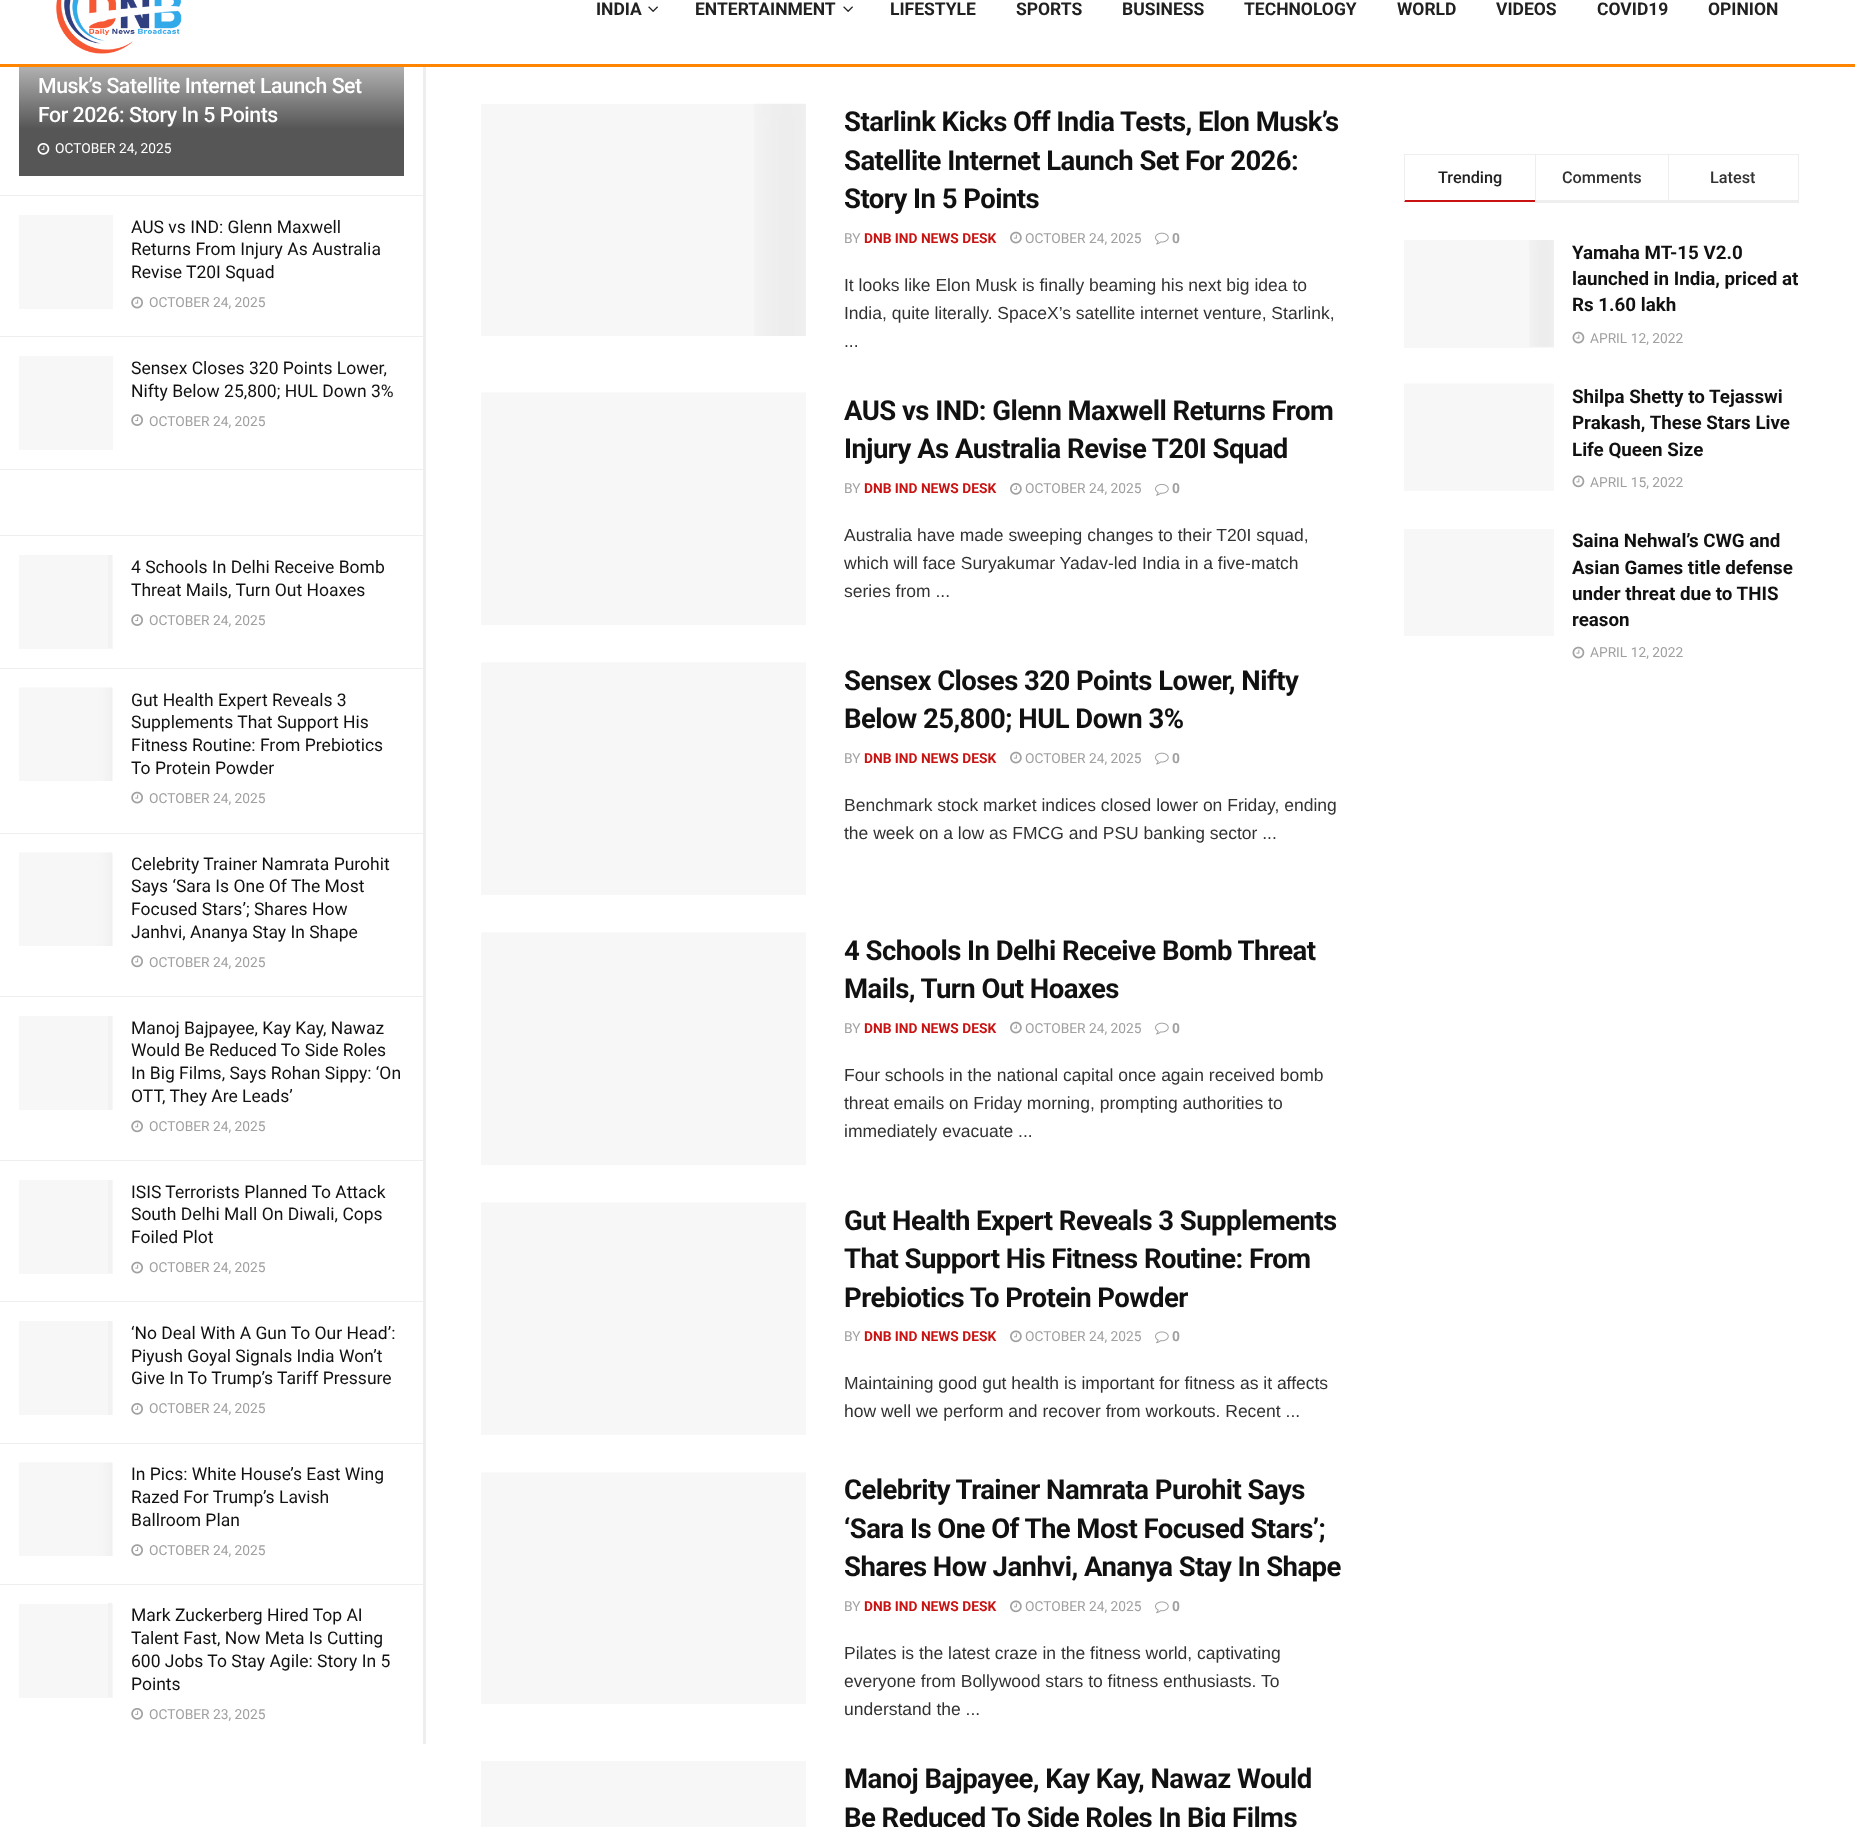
<!DOCTYPE html>
<meta charset="utf-8">
<style>body { margin: 0 } canvas { display: block }</style>
<canvas id="canvas" width="1855" height="1827"></canvas>
<script type="module">
  const canvas = document.getElementById("canvas");
  const g = canvas.getContext("2d");
  g.miterLimit = 4;
  g.fontKerning = "normal";
  function drawText(s, x, y, [font, color]) {
    g.font = font;
    g.fillStyle = color;
    g.fillText(s, x, y);
  }
  function fillBox(x, y, w, h, color) {
    g.fillStyle = color;
    g.fillRect(x, y, w, h);
  }
  async function drawPicture(src, x, y, w, h) {
    const img = new Image();
    img.src = src;
    await img.decode();
    g.drawImage(img, x, y, w, h);
  }
  let gradient;

  const s1 = ["500 21.25px Roboto", "#FFFFFF"];
  const s2 = ["13.75px Roboto", "#FFFFFF"];
  const s3 = ["17.5px Roboto", "#111111"];
  const s4 = ["13.75px Roboto", "#A0A0A0"];
  const s5 = ["bold 17.5px Roboto", "#212121"];
  const s6 = ["bold 27.5px Roboto", "#111111"];
  const s7 = ["bold 13.75px Roboto", "#C91212"];
  const s8 = ["bold 13.75px Roboto", "#A0A0A0"];
  const s9 = ["17.5px Liberation Sans", "#323232"];
  const s10 = ["500 16.25px Roboto", "#212121"];
  const s11 = ["500 16.25px Roboto", "#323232"];
  const s12 = ["bold 18.75px Roboto", "#111111"];

  fillBox(0, 0, 1855, 1827, "#FFFFFF");
  fillBox(423, 67, 3, 1677, "#EEEEEE");
  fillBox(0, 195, 423, 1, "#EEEEEE");
  gradient = g.createLinearGradient(211, 19, 211, 176);
  gradient.addColorStop(0, "#F7F7F7");
  gradient.addColorStop(0.7, "#565656");
  g.fillStyle = gradient;
  g.fillRect(19, 67, 385, 109);
  g.letterSpacing = "-0.45px";
  drawText("Musk’s Satellite Internet Launch Set", 38, 93, s1);
  drawText("For 2026: Story In 5 Points", 38, 122, s1);
  await drawPicture("pic1.png", 37, 143, 13, 12);
  g.letterSpacing = "0px";
  drawText("OCTOBER 24, 2025", 55, 153, s2);
  fillBox(0, 336, 423, 1, "#EEEEEE");
  fillBox(19, 215, 94, 94, "#F7F7F7");
  drawText("AUS vs IND: Glenn Maxwell", 131, 233, s3);
  drawText("Returns From Injury As Australia", 131, 255, s3);
  drawText("Revise T20I Squad", 131, 278, s3);
  await drawPicture("pic2.png", 131, 296, 12, 13);
  drawText("OCTOBER 24, 2025", 149, 307, s4);
  fillBox(0, 469, 423, 1, "#EEEEEE");
  fillBox(19, 356, 94, 94, "#F7F7F7");
  drawText("Sensex Closes 320 Points Lower,", 131, 374, s3);
  drawText("Nifty Below 25,800; HUL Down 3%", 131, 397, s3);
  await drawPicture("pic3.png", 131, 414, 12, 12);
  drawText("OCTOBER 24, 2025", 149, 426, s4);
  fillBox(0, 535, 423, 1, "#EEEEEE");
  fillBox(0, 668, 423, 1, "#EEEEEE");
  fillBox(19, 555, 94, 94, "#F7F7F7");
  fillBox(108, 555, 4, 93, "#F2F2F2");
  drawText("4 Schools In Delhi Receive Bomb", 131, 573, s3);
  drawText("Threat Mails, Turn Out Hoaxes", 131, 596, s3);
  await drawPicture("pic3.png", 131, 614, 12, 12);
  drawText("OCTOBER 24, 2025", 149, 625, s4);
  fillBox(0, 833, 423, 1, "#EEEEEE");
  fillBox(112, 688, 1, 93, "#F7F7F7");
  await drawPicture("pic4.png", 19, 687, 93, 94);
  drawText("Gut Health Expert Reveals 3", 131, 706, s3);
  drawText("Supplements That Support His", 131, 728, s3);
  drawText("Fitness Routine: From Prebiotics", 131, 751, s3);
  drawText("To Protein Powder", 131, 774, s3);
  await drawPicture("pic2.png", 131, 791, 12, 13);
  drawText("OCTOBER 24, 2025", 149, 803, s4);
  fillBox(0, 996, 423, 1, "#EEEEEE");
  fillBox(112, 853, 1, 93, "#F7F7F7");
  await drawPicture("pic4.png", 19, 852, 93, 94);
  drawText("Celebrity Trainer Namrata Purohit", 131, 870, s3);
  drawText("Says ‘Sara Is One Of The Most", 131, 892, s3);
  drawText("Focused Stars’; Shares How", 131, 915, s3);
  drawText("Janhvi, Ananya Stay In Shape", 131, 938, s3);
  await drawPicture("pic5.png", 131, 955, 12, 13);
  drawText("OCTOBER 24, 2025", 149, 967, s4);
  fillBox(0, 1160, 423, 1, "#EEEEEE");
  fillBox(19, 1016, 94, 94, "#F7F7F7");
  fillBox(108, 1016, 4, 94, "#F2F2F2");
  drawText("Manoj Bajpayee, Kay Kay, Nawaz", 131, 1034, s3);
  drawText("Would Be Reduced To Side Roles", 131, 1056, s3);
  drawText("In Big Films, Says Rohan Sippy: ‘On", 131, 1079, s3);
  drawText("OTT, They Are Leads’", 131, 1102, s3);
  await drawPicture("pic5.png", 131, 1120, 12, 13);
  drawText("OCTOBER 24, 2025", 149, 1131, s4);
  fillBox(0, 1301, 423, 1, "#EEEEEE");
  fillBox(19, 1180, 94, 94, "#F7F7F7");
  fillBox(108, 1180, 4, 93, "#F2F2F2");
  drawText("ISIS Terrorists Planned To Attack", 131, 1198, s3);
  drawText("South Delhi Mall On Diwali, Cops", 131, 1220, s3);
  drawText("Foiled Plot", 131, 1243, s3);
  await drawPicture("pic2.png", 131, 1261, 12, 13);
  drawText("OCTOBER 24, 2025", 149, 1272, s4);
  fillBox(0, 1443, 423, 1, "#EEEEEE");
  fillBox(19, 1321, 94, 94, "#F7F7F7");
  fillBox(108, 1321, 4, 94, "#F2F2F2");
  drawText("‘No Deal With A Gun To Our Head’:", 131, 1339, s3);
  drawText("Piyush Goyal Signals India Won’t", 131, 1362, s3);
  drawText("Give In To Trump’s Tariff Pressure", 131, 1384, s3);
  await drawPicture("pic6.png", 131, 1403, 12, 12);
  drawText("OCTOBER 24, 2025", 149, 1413, s4);
  fillBox(0, 1584, 423, 1, "#EEEEEE");
  fillBox(112, 1463, 1, 93, "#F7F7F7");
  await drawPicture("pic4.png", 19, 1462, 93, 94);
  drawText("In Pics: White House’s East Wing", 131, 1480, s3);
  drawText("Razed For Trump’s Lavish", 131, 1503, s3);
  drawText("Ballroom Plan", 131, 1526, s3);
  await drawPicture("pic3.png", 131, 1544, 12, 12);
  drawText("OCTOBER 24, 2025", 149, 1555, s4);
  fillBox(19, 1604, 94, 94, "#F7F7F7");
  fillBox(108, 1603, 4, 94, "#F2F2F2");
  drawText("Mark Zuckerberg Hired Top AI", 131, 1621, s3);
  drawText("Talent Fast, Now Meta Is Cutting", 131, 1644, s3);
  drawText("600 Jobs To Stay Agile: Story In 5", 131, 1667, s3);
  drawText("Points", 131, 1690, s3);
  await drawPicture("pic6.png", 131, 1708, 12, 12);
  drawText("OCTOBER 23, 2025", 149, 1719, s4);
  fillBox(0, 64, 1855, 3, "#FF8500");
  await drawPicture("pic7.png", 56, 0, 126, 54);
  drawText("INDIA", 596, 15, s5);
  await drawPicture("pic8.png", 648, 6, 10, 6);
  drawText("ENTERTAINMENT", 695, 15, s5);
  await drawPicture("pic8.png", 843, 6, 10, 6);
  drawText("LIFESTYLE", 890, 15, s5);
  drawText("SPORTS", 1016, 15, s5);
  drawText("BUSINESS", 1122, 15, s5);
  drawText("TECHNOLOGY", 1244, 15, s5);
  drawText("WORLD", 1397, 15, s5);
  drawText("VIDEOS", 1496, 15, s5);
  drawText("COVID19", 1597, 15, s5);
  drawText("OPINION", 1708, 15, s5);
  fillBox(481, 104, 273, 232, "#F7F7F7");
  await drawPicture("pic9.png", 754, 103, 52, 233);
  g.letterSpacing = "-0.55px";
  drawText("Starlink Kicks Off India Tests, Elon Musk’s", 844, 131, s6);
  drawText("Satellite Internet Launch Set For 2026:", 844, 170, s6);
  drawText("Story In 5 Points", 844, 208, s6);
  g.letterSpacing = "0px";
  drawText("BY", 844, 243, s4);
  drawText("DNB IND NEWS DESK", 864, 243, s7);
  await drawPicture("pic10.png", 1010, 231, 12, 13);
  drawText("OCTOBER 24, 2025", 1025, 243, s4);
  await drawPicture("pic11.png", 1155, 232, 14, 13);
  drawText("0", 1172, 243, s8);
  drawText("It looks like Elon Musk is finally beaming his next big idea to", 844, 291, s9);
  drawText("India, quite literally. SpaceX’s satellite internet venture, Starlink,", 844, 319, s9);
  drawText("...", 844, 347, s9);
  fillBox(481, 393, 325, 232, "#F7F7F7");
  fillBox(482, 392, 324, 1, "#FAFAFA");
  g.letterSpacing = "-0.55px";
  drawText("AUS vs IND: Glenn Maxwell Returns From", 844, 420, s6);
  drawText("Injury As Australia Revise T20I Squad", 844, 458, s6);
  g.letterSpacing = "0px";
  drawText("BY", 844, 493, s4);
  drawText("DNB IND NEWS DESK", 864, 493, s7);
  await drawPicture("pic12.png", 1010, 483, 12, 12);
  drawText("OCTOBER 24, 2025", 1025, 493, s4);
  await drawPicture("pic13.png", 1155, 484, 14, 12);
  drawText("0", 1172, 493, s8);
  drawText("Australia have made sweeping changes to their T20I squad,", 844, 541, s9);
  drawText("which will face Suryakumar Yadav-led India in a five-match", 844, 569, s9);
  drawText("series from ...", 844, 597, s9);
  fillBox(481, 663, 325, 232, "#F7F7F7");
  fillBox(482, 662, 324, 1, "#FAFAFA");
  g.letterSpacing = "-0.55px";
  drawText("Sensex Closes 320 Points Lower, Nifty", 844, 690, s6);
  drawText("Below 25,800; HUL Down 3%", 844, 728, s6);
  g.letterSpacing = "0px";
  drawText("BY", 844, 763, s4);
  drawText("DNB IND NEWS DESK", 864, 763, s7);
  await drawPicture("pic10.png", 1010, 751, 12, 13);
  drawText("OCTOBER 24, 2025", 1025, 763, s4);
  await drawPicture("pic11.png", 1155, 752, 14, 13);
  drawText("0", 1172, 763, s8);
  drawText("Benchmark stock market indices closed lower on Friday, ending", 844, 811, s9);
  drawText("the week on a low as FMCG and PSU banking sector ...", 844, 839, s9);
  fillBox(481, 933, 325, 232, "#F7F7F7");
  fillBox(482, 932, 324, 1, "#FAFAFA");
  g.letterSpacing = "-0.55px";
  drawText("4 Schools In Delhi Receive Bomb Threat", 844, 960, s6);
  drawText("Mails, Turn Out Hoaxes", 844, 998, s6);
  g.letterSpacing = "0px";
  drawText("BY", 844, 1033, s4);
  drawText("DNB IND NEWS DESK", 864, 1033, s7);
  await drawPicture("pic10.png", 1010, 1021, 12, 13);
  drawText("OCTOBER 24, 2025", 1025, 1033, s4);
  await drawPicture("pic11.png", 1155, 1022, 14, 13);
  drawText("0", 1172, 1033, s8);
  drawText("Four schools in the national capital once again received bomb", 844, 1081, s9);
  drawText("threat emails on Friday morning, prompting authorities to", 844, 1109, s9);
  drawText("immediately evacuate ...", 844, 1137, s9);
  fillBox(481, 1203, 325, 232, "#F7F7F7");
  fillBox(482, 1202, 324, 1, "#FAFAFA");
  g.letterSpacing = "-0.55px";
  drawText("Gut Health Expert Reveals 3 Supplements", 844, 1230, s6);
  drawText("That Support His Fitness Routine: From", 844, 1268, s6);
  drawText("Prebiotics To Protein Powder", 844, 1307, s6);
  g.letterSpacing = "0px";
  drawText("BY", 844, 1341, s4);
  drawText("DNB IND NEWS DESK", 864, 1341, s7);
  await drawPicture("pic14.png", 1010, 1330, 12, 13);
  drawText("OCTOBER 24, 2025", 1025, 1341, s4);
  await drawPicture("pic15.png", 1155, 1331, 14, 13);
  drawText("0", 1172, 1341, s8);
  drawText("Maintaining good gut health is important for fitness as it affects", 844, 1389, s9);
  drawText("how well we perform and recover from workouts. Recent ...", 844, 1417, s9);
  fillBox(481, 1473, 325, 231, "#F7F7F7");
  fillBox(482, 1472, 324, 1, "#FAFAFA");
  g.letterSpacing = "-0.55px";
  drawText("Celebrity Trainer Namrata Purohit Says", 844, 1499, s6);
  drawText("‘Sara Is One Of The Most Focused Stars’;", 844, 1538, s6);
  drawText("Shares How Janhvi, Ananya Stay In Shape", 844, 1576, s6);
  g.letterSpacing = "0px";
  drawText("BY", 844, 1611, s4);
  drawText("DNB IND NEWS DESK", 864, 1611, s7);
  await drawPicture("pic14.png", 1010, 1600, 12, 13);
  drawText("OCTOBER 24, 2025", 1025, 1611, s4);
  await drawPicture("pic15.png", 1155, 1601, 14, 13);
  drawText("0", 1172, 1611, s8);
  drawText("Pilates is the latest craze in the fitness world, captivating", 844, 1659, s9);
  drawText("everyone from Bollywood stars to fitness enthusiasts. To", 844, 1687, s9);
  drawText("understand the ...", 844, 1715, s9);
  fillBox(481, 1761, 325, 66, "#F7F7F7");
  g.letterSpacing = "-0.55px";
  drawText("Manoj Bajpayee, Kay Kay, Nawaz Would", 844, 1788, s6);
  drawText("Be Reduced To Side Roles In Big Films", 844, 1827, s6);
  fillBox(1404, 154, 395, 1, "#EEEEEE");
  g.fillStyle = "#C91212";
  g.beginPath();
  g.moveTo(1535, 202);
  g.lineTo(1404, 202);
  g.lineTo(1405, 200);
  g.lineTo(1535, 200);
  g.closePath();
  g.fill();
  g.fillStyle = "#EEEEEE";
  g.beginPath();
  g.moveTo(1404, 202);
  g.lineTo(1404, 154);
  g.lineTo(1405, 155);
  g.lineTo(1405, 200);
  g.closePath();
  g.fill();
  g.letterSpacing = "0px";
  drawText("Trending", 1438, 183, s10);
  fillBox(1535, 200, 133, 3, "#EEEEEE");
  fillBox(1535, 154, 1, 49, "#EEEEEE");
  drawText("Comments", 1562, 183, s11);
  fillBox(1798, 154, 1, 49, "#EEEEEE");
  fillBox(1668, 200, 131, 3, "#EEEEEE");
  fillBox(1668, 154, 1, 49, "#EEEEEE");
  drawText("Latest", 1710, 183, s11);
  fillBox(1404, 240, 150, 108, "#F7F7F7");
  await drawPicture("pic16.png", 1529, 240, 25, 107);
  drawText("Yamaha MT-15 V2.0", 1572, 259, s12);
  drawText("launched in India, priced at", 1572, 285, s12);
  drawText("Rs 1.60 lakh", 1572, 311, s12);
  await drawPicture("pic17.png", 1572, 331, 13, 13);
  drawText("APRIL 12, 2022", 1590, 343, s4);
  fillBox(1404, 384, 150, 107, "#F7F7F7");
  fillBox(1404, 383, 149, 1, "#FBFBFB");
  drawText("Shilpa Shetty to Tejasswi", 1572, 403, s12);
  drawText("Prakash, These Stars Live", 1572, 429, s12);
  drawText("Life Queen Size", 1572, 456, s12);
  await drawPicture("pic18.png", 1572, 475, 13, 13);
  drawText("APRIL 15, 2022", 1590, 487, s4);
  fillBox(1404, 529, 150, 107, "#F7F7F7");
  drawText("Saina Nehwal’s CWG and", 1572, 547, s12);
  drawText("Asian Games title defense", 1572, 574, s12);
  drawText("under threat due to THIS", 1572, 600, s12);
  drawText("reason", 1572, 626, s12);
  await drawPicture("pic17.png", 1572, 646, 13, 13);
  drawText("APRIL 12, 2022", 1590, 657, s4);
</script>
